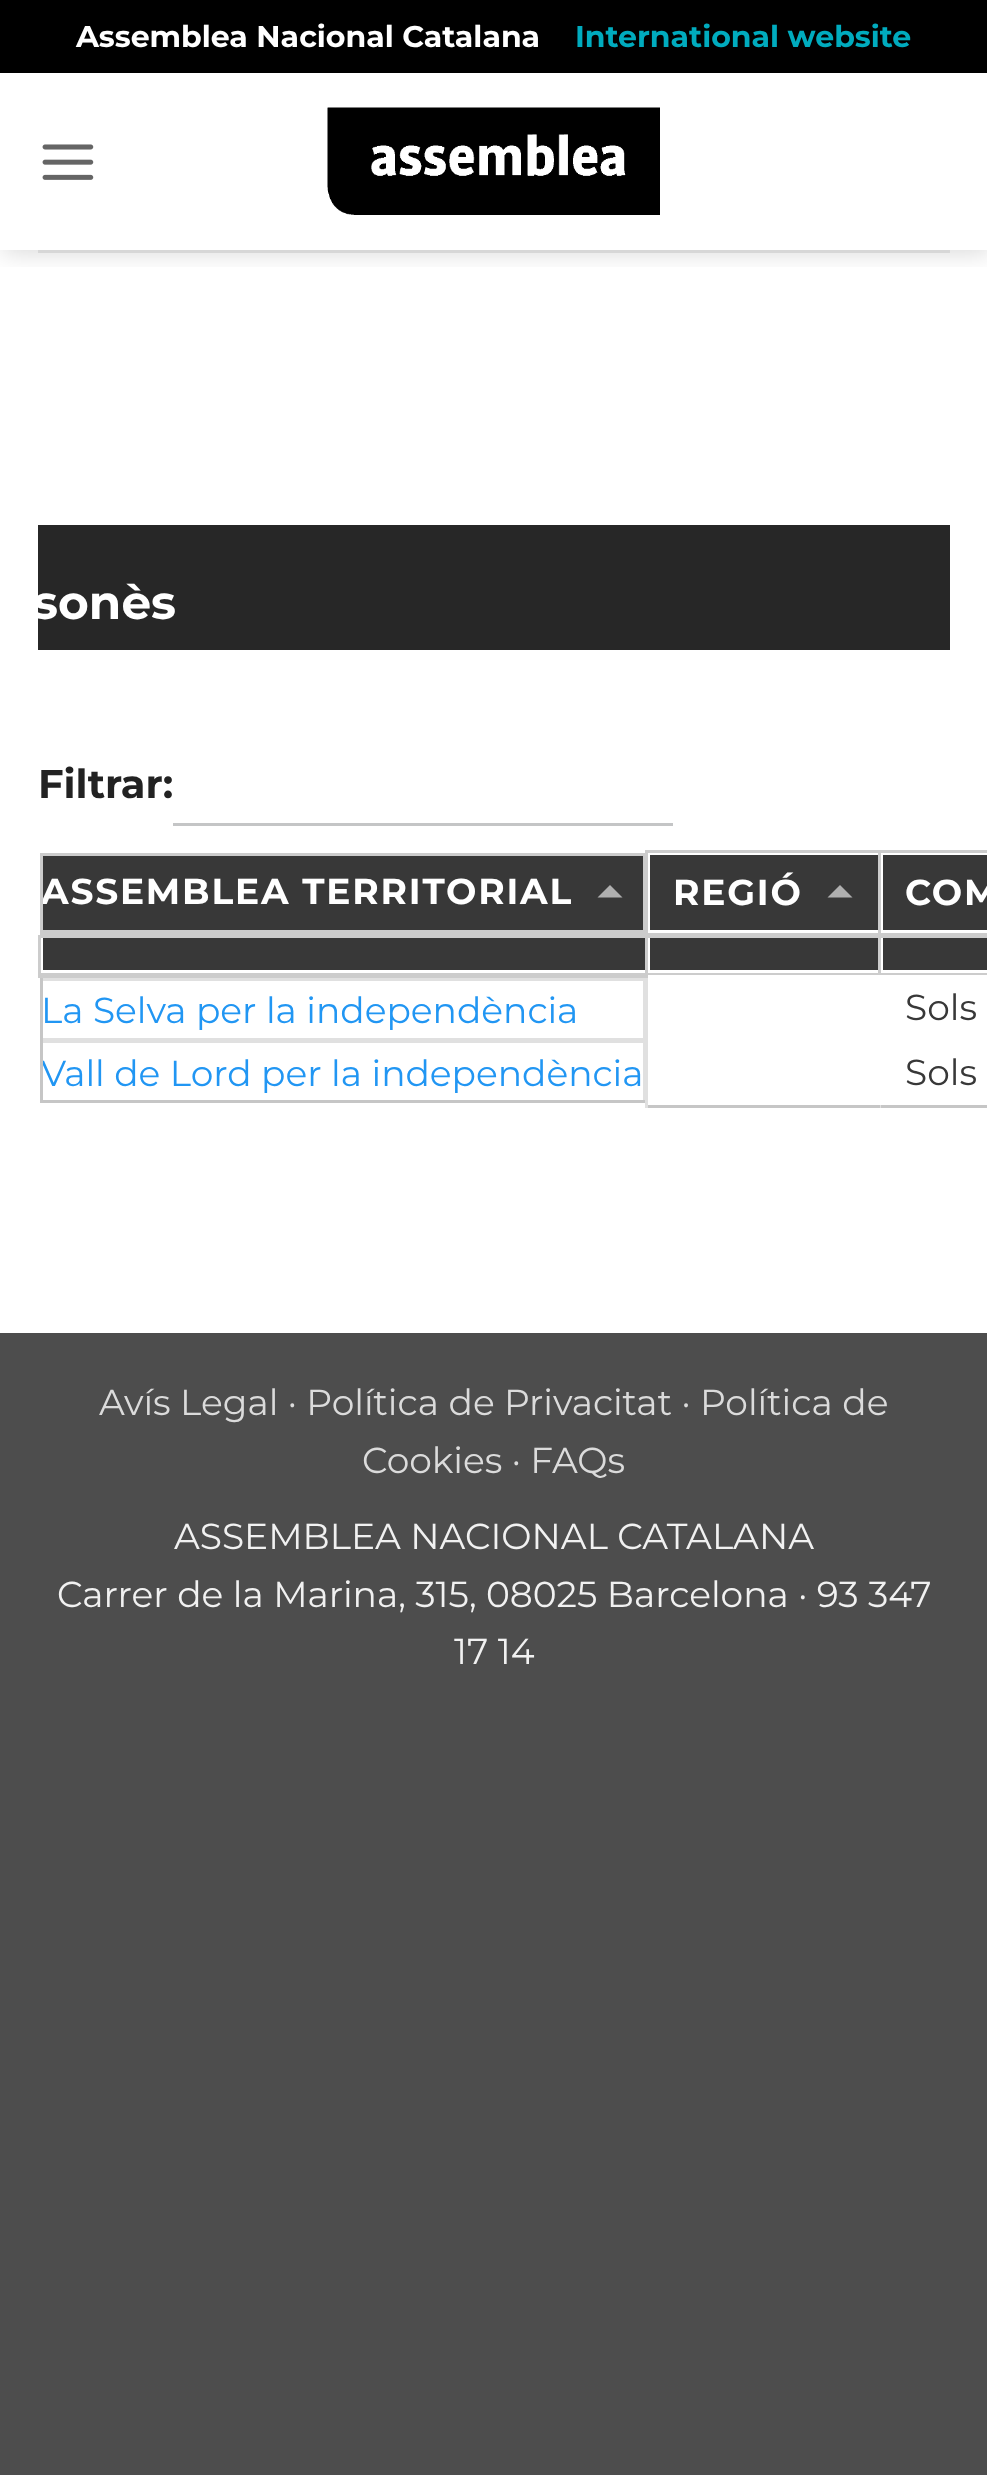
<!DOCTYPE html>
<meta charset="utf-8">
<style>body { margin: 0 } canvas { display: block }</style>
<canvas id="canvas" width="987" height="2475"></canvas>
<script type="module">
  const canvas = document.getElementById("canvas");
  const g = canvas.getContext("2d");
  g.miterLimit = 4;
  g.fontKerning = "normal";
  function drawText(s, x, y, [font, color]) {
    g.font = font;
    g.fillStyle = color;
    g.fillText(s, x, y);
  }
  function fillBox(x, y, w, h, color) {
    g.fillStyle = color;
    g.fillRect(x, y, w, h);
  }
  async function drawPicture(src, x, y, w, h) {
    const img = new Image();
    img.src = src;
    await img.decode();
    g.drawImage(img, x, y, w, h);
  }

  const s1 = ["bold 30px Montserrat", "#FFFFFF"];
  const s2 = ["bold 30px Montserrat", "#00ABBE"];
  const s3 = ["bold 47px Montserrat", "#FFFFFF"];
  const s4 = ["bold 40px Montserrat", "#222222"];
  const s5 = ["bold 36px Montserrat", "#FFFFFF"];
  const s6 = ["36px Montserrat", "#2196F3"];
  const s7 = ["36px Montserrat", "#383838"];
  const s8 = ["36px Montserrat", "#DBDBDB"];
  const s9 = ["36px Montserrat", "#F1F1F1"];

  fillBox(0, 0, 987, 2475, "#4D4D4D");
  fillBox(0, 73, 987, 1260, "#FFFFFF");
  g.save();
  g.beginPath();
  g.rect(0, 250, 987, 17);
  g.clip();
  g.fillStyle = "rgba(0, 0, 0, 0.15)";
  g.filter = "blur(12.5px)";
  g.beginPath();
  g.rect(3, 3, 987, 250);
  g.fill();
  g.filter = "none";
  g.restore();
  fillBox(0, 0, 987, 73, "#000000");
  drawText("Assemblea Nacional Catalana", 76, 47, s1);
  drawText("International website", 575, 47, s2);
  await drawPicture("pic1.png", 42, 144, 52, 36);
  await drawPicture("pic2.png", 327, 107, 333, 108);
  fillBox(38, 250, 912, 3, "#D7D7D7");
  fillBox(38, 525, 912, 125, "#272727");
  g.save();
  g.beginPath();
  g.rect(38, 525, 912, 125);
  g.clip();
  drawText("sonès", 33, 619, s3);
  g.restore();
  drawText("Filtrar:", 38, 798, s4);
  fillBox(173, 823, 500, 3, "#C4C5C6");
  fillBox(43, 856, 600, 74, "#383838");
  fillBox(40, 853, 605, 3, "#CCCCCC");
  fillBox(643, 853, 2, 82, "#CCCCCC");
  fillBox(40, 930, 605, 5, "#CCCCCC");
  fillBox(40, 853, 3, 82, "#CCCCCC");
  g.save();
  g.beginPath();
  g.rect(43, 855, 600, 75);
  g.clip();
  g.letterSpacing = "1.8px";
  drawText("ASSEMBLEA TERRITORIAL", 41, 904, s5);
  g.restore();
  g.fillStyle = "#AFAFAF";
  g.beginPath();
  g.moveTo(622.5, 897.5);
  g.lineTo(597.5, 897.5);
  g.lineTo(610, 885);
  g.closePath();
  g.fill();
  fillBox(878, 850, 109, 3, "#CCCCCC");
  fillBox(878, 935, 3, 43, "#CCCCCC");
  fillBox(878, 850, 3, 88, "#CCCCCC");
  fillBox(645, 850, 235, 3, "#CCCCCC");
  fillBox(645, 1105, 342, 3, "#C6C6C6");
  fillBox(645, 1040, 3, 68, "#E0E0E0");
  fillBox(646, 975, 2, 68, "#E0E0E0");
  fillBox(645, 935, 3, 43, "#CCCCCC");
  fillBox(38, 935, 610, 3, "#CCCCCC");
  fillBox(645, 850, 3, 88, "#CCCCCC");
  fillBox(650, 855, 228, 75, "#383838");
  g.letterSpacing = "1.8px";
  drawText("REGIÓ", 673, 905, s5);
  g.fillStyle = "#AFAFAF";
  g.beginPath();
  g.moveTo(852.5, 897.5);
  g.lineTo(827.5, 897.5);
  g.lineTo(840, 885);
  g.closePath();
  g.fill();
  fillBox(645, 933, 342, 5, "#CCCCCC");
  fillBox(883, 855, 104, 75, "#383838");
  drawText("COM", 905, 905, s5);
  fillBox(43, 938, 602, 32, "#383838");
  fillBox(38, 935, 3, 43, "#CCCCCC");
  fillBox(645, 973, 342, 2, "#CCCCCC");
  fillBox(38, 973, 612, 5, "#CCCCCC");
  fillBox(650, 938, 228, 32, "#383838");
  fillBox(883, 938, 104, 32, "#383838");
  fillBox(40, 978, 605, 3, "#E0E0E0");
  fillBox(643, 978, 3, 62, "#E0E0E0");
  fillBox(40, 1038, 605, 5, "#E0E0E0");
  fillBox(40, 978, 3, 62, "#C6C6C6");
  g.letterSpacing = "0px";
  drawText("La Selva per la independència", 41, 1023, s6);
  fillBox(648, 975, 233, 3, "#FFFFFF");
  drawText("Sols", 905, 1020, s7);
  fillBox(643, 1040, 2, 63, "#E0E0E0");
  fillBox(40, 1100, 605, 3, "#C6C6C6");
  fillBox(40, 1040, 3, 63, "#C6C6C6");
  g.save();
  g.beginPath();
  g.rect(43, 1043, 600, 57);
  g.clip();
  drawText("Vall de Lord per la independència", 41, 1086, s6);
  g.restore();
  fillBox(880, 1105, 1, 3, "#E0E0E0");
  drawText("Sols", 905, 1085, s7);
  drawText("Avís Legal · Política de Privacitat · Política de", 99, 1415, s8);
  drawText("Cookies · FAQs", 362, 1473, s8);
  drawText("ASSEMBLEA NACIONAL CATALANA", 174, 1549, s9);
  drawText("Carrer de la Marina, 315, 08025 Barcelona · 93 347", 57, 1607, s9);
  drawText("17 14", 454, 1664, s9);
</script>
